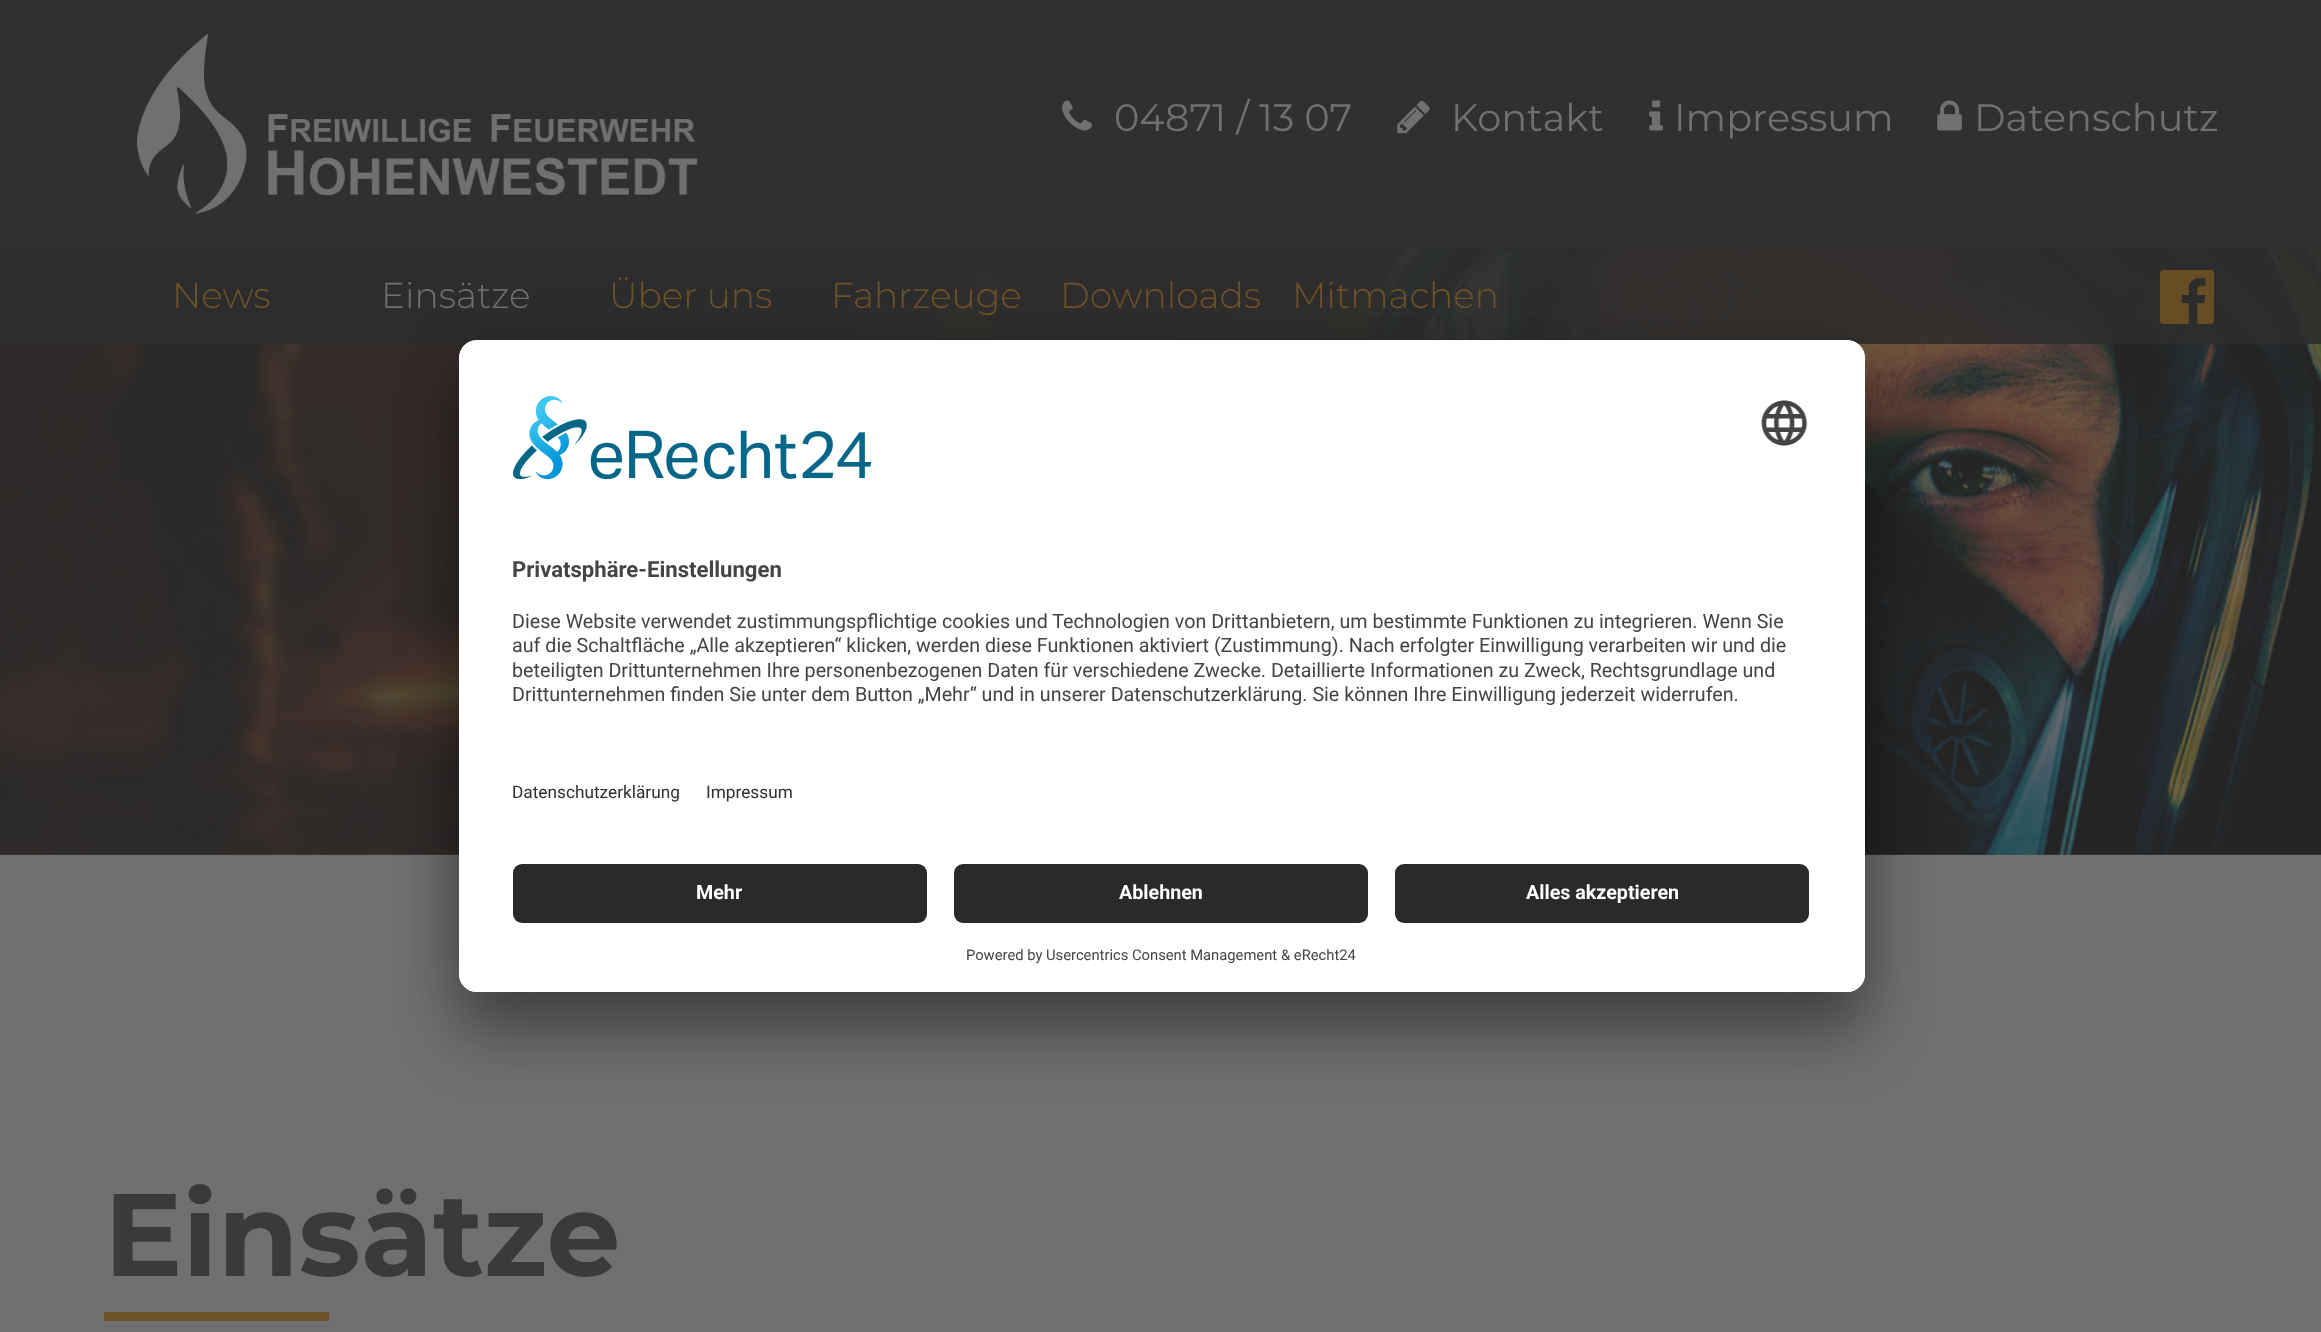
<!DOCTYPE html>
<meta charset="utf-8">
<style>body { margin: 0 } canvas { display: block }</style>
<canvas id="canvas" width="2321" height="1332"></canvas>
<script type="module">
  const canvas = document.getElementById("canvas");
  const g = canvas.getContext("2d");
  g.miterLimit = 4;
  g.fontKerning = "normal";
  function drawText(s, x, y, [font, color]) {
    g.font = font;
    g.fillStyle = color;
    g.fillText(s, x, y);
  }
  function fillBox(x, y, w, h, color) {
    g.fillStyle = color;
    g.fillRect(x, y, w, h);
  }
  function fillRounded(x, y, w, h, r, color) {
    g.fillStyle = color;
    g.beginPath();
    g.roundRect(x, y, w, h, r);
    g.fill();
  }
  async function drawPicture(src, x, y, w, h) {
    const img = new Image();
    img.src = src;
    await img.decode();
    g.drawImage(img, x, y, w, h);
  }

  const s1 = ["100 38.25px 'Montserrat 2'", "#707070"];
  const s2 = ["100 36px 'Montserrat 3'", "#6D5329"];
  const s3 = ["100 36px 'Montserrat 3'", "#707070"];
  const s4 = ["100 117px Montserrat", "#3A3A3A"];
  const s5 = ["bold 22.1px Roboto", "#444444"];
  const s6 = ["19.7px Roboto", "#444444"];
  const s7 = ["17.25px Roboto", "#303030"];
  const s8 = ["bold 19.7px Roboto", "#FFFFFF"];
  const s9 = ["14.75px Roboto", "#444444"];

  fillBox(0, 0, 2321, 1332, "#707070");
  await drawPicture("pic7.png", 0, 248, 2321, 607);
  fillBox(0, 248, 2321, 96, "rgba(45, 45, 45, 0.9)");
  fillBox(0, 0, 2321, 248, "#303030");
  await drawPicture("pic1.png", 137, 34, 561, 180);
  await drawPicture("pic2.png", 1062, 100, 30, 31);
  drawText("04871 / 13 07", 1114, 131, s1);
  await drawPicture("pic3.png", 1397, 100, 33, 34);
  drawText("Kontakt", 1451, 131, s1);
  await drawPicture("pic4.png", 1649, 100, 14, 31);
  drawText("Impressum", 1674, 131, s1);
  await drawPicture("pic5.png", 1937, 100, 25, 31);
  drawText("Datenschutz", 1974, 131, s1);
  drawText("News", 172, 308, s2);
  drawText("Einsätze", 381, 308, s3);
  drawText("Über uns", 609, 308, s2);
  drawText("Fahrzeuge", 831, 308, s2);
  drawText("Downloads", 1060, 308, s2);
  drawText("Mitmachen", 1292, 308, s2);
  await drawPicture("pic6.png", 2160, 270, 54, 54);
  drawText("Einsätze", 104, 1276, s4);
  fillBox(104, 1312, 225, 9, "#6D5329");
  g.fillStyle = "rgba(0, 0, 0, 0.3)";
  g.filter = "blur(31.5px)";
  g.beginPath();
  g.roundRect(459, 385, 1406, 652, 18);
  g.fill();
  g.filter = "none";
  g.fillStyle = "rgba(0, 0, 0, 0.22)";
  g.filter = "blur(29px)";
  g.beginPath();
  g.roundRect(459, 351, 1406, 653, 18);
  g.fill();
  g.filter = "none";
  fillRounded(459, 340, 1406, 652, 18, "#FFFFFF");
  g.save();
  g.beginPath();
  g.roundRect(459, 340, 1406, 652, 18);
  g.clip();
  g.beginPath();
  g.roundRect(459, 340, 1406, 506, [18, 18, 0, 0]);
  g.clip();
  fillBox(459, 342, 1406, 504, "#FFFFFF");
  g.restore();
  await drawPicture("pic8.png", 513, 396, 358, 84);
  await drawPicture("pic9.png", 1761, 400, 47, 46);
  drawText("Privatsphäre-Einstellungen", 512, 577, s5);
  drawText("Diese Website verwendet zustimmungspflichtige cookies und Technologien von Drittanbietern, um bestimmte Funktionen zu integrieren. Wenn Sie", 512, 628, s6);
  drawText("auf die Schaltfläche „Alle akzeptieren“ klicken, werden diese Funktionen aktiviert (Zustimmung). Nach erfolgter Einwilligung verarbeiten wir und die", 512, 652, s6);
  drawText("beteiligten Drittunternehmen Ihre personenbezogenen Daten für verschiedene Zwecke. Detaillierte Informationen zu Zweck, Rechtsgrundlage und", 512, 677, s6);
  drawText("Drittunternehmen finden Sie unter dem Button „Mehr“ und in unserer Datenschutzerklärung. Sie können Ihre Einwilligung jederzeit widerrufen.", 512, 701, s6);
  drawText("Datenschutzerklärung", 512, 798, s7);
  drawText("Impressum", 706, 798, s7);
  g.fillStyle = "#FFFFFF";
  g.beginPath();
  g.roundRect(459, 846, 1406, 146, [0, 0, 18, 18]);
  g.fill();
  fillRounded(513, 864, 414, 59, 9, "#292A2B");
  drawText("Mehr", 696, 899, s8);
  fillRounded(954, 864, 414, 59, 9, "#292A2B");
  drawText("Ablehnen", 1119, 899, s8);
  fillRounded(1395, 864, 414, 59, 9, "#292A2B");
  drawText("Alles akzeptieren", 1526, 899, s8);
  drawText("Powered by Usercentrics Consent Management", 966, 960, s9);
  drawText("& eRecht24", 1281, 960, s9);
</script>
